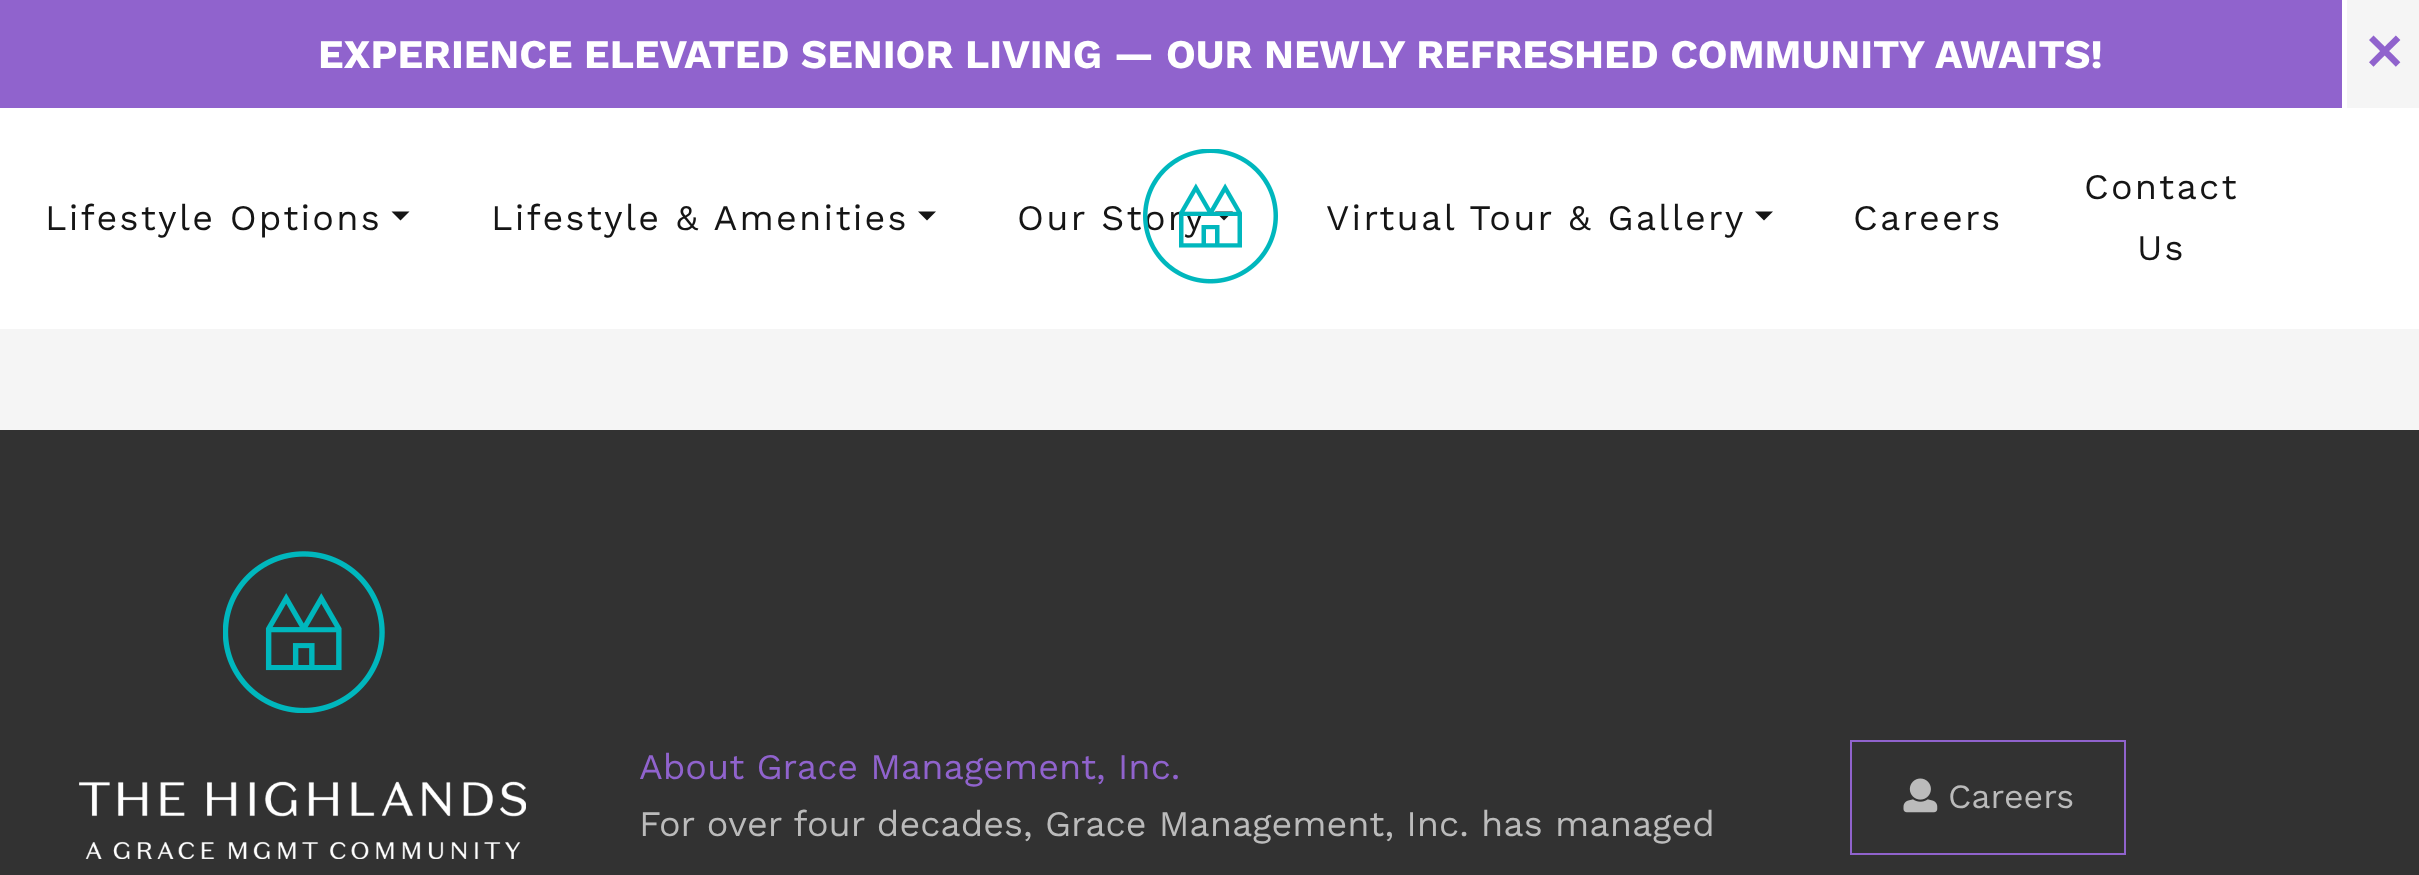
<!DOCTYPE html>
<meta charset="utf-8">
<style>body { margin: 0 } canvas { display: block }</style>
<canvas id="canvas" width="2419" height="875"></canvas>
<script type="module">
  const canvas = document.getElementById("canvas");
  const g = canvas.getContext("2d");
  g.miterLimit = 4;
  g.fontKerning = "normal";
  function drawText(s, x, y, [font, color]) {
    g.font = font;
    g.fillStyle = color;
    g.fillText(s, x, y);
  }
  function fillBox(x, y, w, h, color) {
    g.fillStyle = color;
    g.fillRect(x, y, w, h);
  }
  async function drawPicture(src, x, y, w, h) {
    const img = new Image();
    img.src = src;
    await img.decode();
    g.drawImage(img, x, y, w, h);
  }

  const s1 = ["bold 40.5px Work Sans", "#FFFFFF"];
  const s2 = ["bold 50px DejaVu Sans", "#9063CD"];
  const s3 = ["36px Work Sans", "#151515"];
  const s4 = ["36px Work Sans", "#9063CD"];
  const s5 = ["36px Work Sans", "#BBBBBB"];
  const s6 = ["34px Work Sans", "#BBBBBB"];

  fillBox(0, 0, 2419, 875, "#323232");
  fillBox(0, 0, 2342, 108, "#9063CD");
  drawText("EXPERIENCE ELEVATED SENIOR LIVING — OUR NEWLY REFRESHED COMMUNITY AWAITS!", 318, 68, s1);
  fillBox(2347, 0, 72, 108, "#F5F5F5");
  fillBox(2342, 0, 5, 108, "#FFFFFF");
  drawText("✕", 2363, 70, s2);
  fillBox(0, 108, 2419, 221, "#FFFFFF");
  g.letterSpacing = "2.25px";
  drawText("Lifestyle Options", 45, 230, s3);
  g.beginPath();
  g.moveTo(391.5, 211.5);
  g.lineTo(409.5, 211.5);
  g.lineTo(400.5, 220.5);
  g.closePath();
  g.fill();
  drawText("Lifestyle & Amenities", 491, 230, s3);
  g.beginPath();
  g.moveTo(918, 211.5);
  g.lineTo(936, 211.5);
  g.lineTo(927, 220.5);
  g.closePath();
  g.fill();
  drawText("Our Story", 1017, 230, s3);
  g.beginPath();
  g.moveTo(1215, 211.5);
  g.lineTo(1233, 211.5);
  g.lineTo(1224, 220.5);
  g.closePath();
  g.fill();
  await drawPicture("pic1.png", 1143, 149, 135, 135);
  drawText("Virtual Tour & Gallery", 1326, 230, s3);
  g.beginPath();
  g.moveTo(1755, 211.5);
  g.lineTo(1773, 211.5);
  g.lineTo(1764, 220.5);
  g.closePath();
  g.fill();
  drawText("Careers", 1853, 230, s3);
  drawText("Contact", 2084, 199, s3);
  drawText("Us", 2137, 260, s3);
  fillBox(0, 329, 2419, 101, "#F5F5F5");
  await drawPicture("pic2.png", 223, 551, 162, 162);
  await drawPicture("pic3.png", 79, 781, 447, 78);
  g.letterSpacing = "0px";
  drawText("About Grace Management, Inc.", 639, 779, s4);
  drawText("For over four decades, Grace Management, Inc. has managed", 639, 836, s5);
  g.strokeStyle = "#9063CD";
  g.lineWidth = 2;
  g.strokeRect(1851, 741, 274, 113);
  await drawPicture("pic4.png", 1903, 778, 35, 35);
  drawText("Careers", 1948, 808, s6);
</script>
